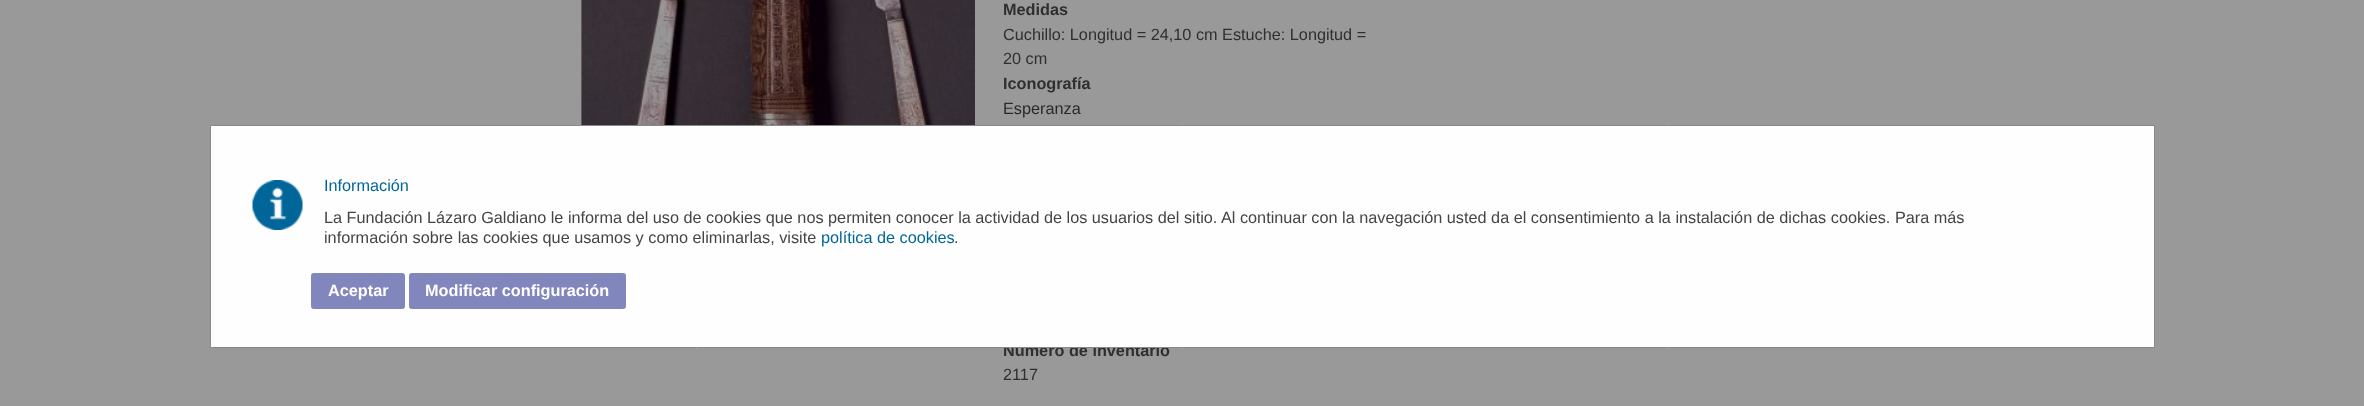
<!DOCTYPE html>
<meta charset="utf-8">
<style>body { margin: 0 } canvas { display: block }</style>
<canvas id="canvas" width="2364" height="406"></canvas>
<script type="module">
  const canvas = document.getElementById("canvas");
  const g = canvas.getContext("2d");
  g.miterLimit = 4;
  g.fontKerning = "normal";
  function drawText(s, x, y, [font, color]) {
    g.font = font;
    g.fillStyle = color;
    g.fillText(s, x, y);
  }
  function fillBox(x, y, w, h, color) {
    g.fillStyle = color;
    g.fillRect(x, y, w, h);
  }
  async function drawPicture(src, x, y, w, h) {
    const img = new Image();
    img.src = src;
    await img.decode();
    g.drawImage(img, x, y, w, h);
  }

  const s1 = ["bold 16.25px Liberation Sans", "#2F2F30"];
  const s2 = ["16.25px Liberation Sans", "#2F2F30"];
  const s3 = ["16.25px Liberation Sans", "#292929"];
  const s4 = ["16.25px Liberation Sans", "#006699"];
  const s5 = ["16.25px Liberation Sans", "#444444"];
  const s6 = ["bold 16.25px Liberation Sans", "#FFFFFF"];

  fillBox(0, 0, 2364, 406, "#999999");
  fillBox(581, 0, 1, 125, "#939393");
  await drawPicture("pic1.png", 581, 0, 394, 125);
  drawText("Medidas", 1003, 15, s1);
  drawText("Cuchillo: Longitud = 24,10 cm Estuche: Longitud =", 1003, 40, s2);
  drawText("20 cm", 1003, 64, s2);
  drawText("Iconografía", 1003, 89, s1);
  drawText("Esperanza", 1003, 114, s3);
  drawText("Número de inventario", 1003, 356, s1);
  drawText("2117", 1003, 380, s2);
  g.fillStyle = "#FEFEFE";
  g.beginPath();
  g.rect(210.5, 125.5, 1944, 222);
  g.fill();
  g.strokeStyle = "#888888";
  g.stroke();
  await drawPicture("pic2.png", 252, 180, 51, 50);
  drawText("Información", 324, 191, s4);
  drawText("La Fundación Lázaro Galdiano le informa del uso de cookies que nos permiten conocer la actividad de los usuarios del sitio. Al continuar con la navegación usted da el consentimiento a la instalación de dichas cookies. Para más", 324, 223, s5);
  drawText("información sobre las cookies que usamos y como eliminarlas, visite", 324, 243, s5);
  drawText("política de cookies", 821, 243, s4);
  drawText(".", 954, 243, s5);
  g.fillStyle = "#8186BD";
  g.beginPath();
  g.roundRect(311.5, 273.5, 93, 35, 2);
  g.fill();
  g.strokeStyle = "#8186BD";
  g.stroke();
  drawText("Aceptar", 328, 296, s6);
  g.fillStyle = "#8186BD";
  g.beginPath();
  g.roundRect(409.5, 273.5, 216, 35, 2);
  g.fill();
  g.stroke();
  drawText("Modificar configuración", 425, 296, s6);
</script>
